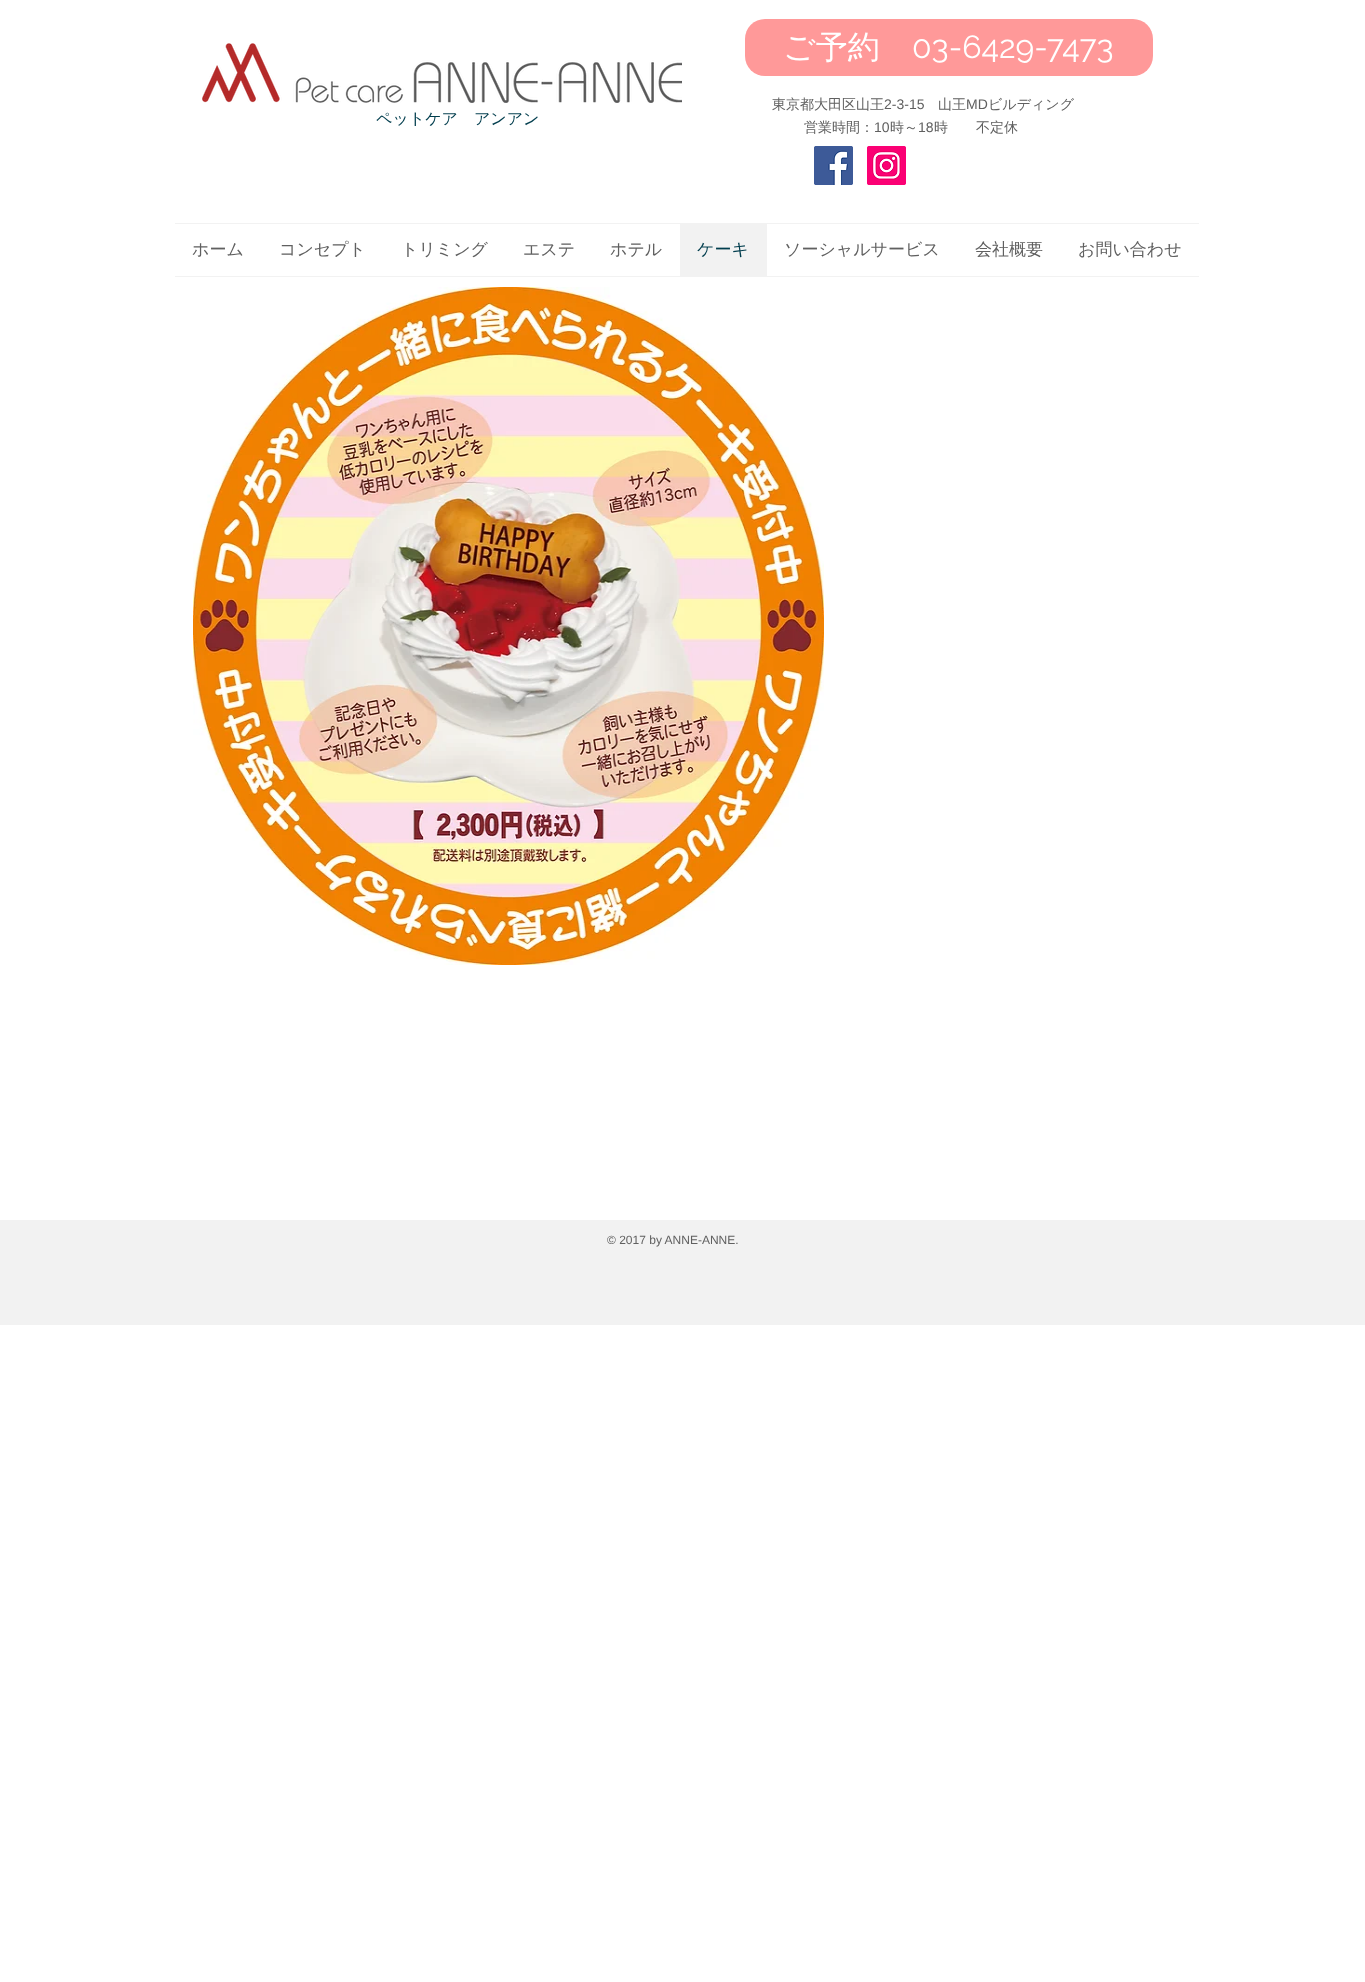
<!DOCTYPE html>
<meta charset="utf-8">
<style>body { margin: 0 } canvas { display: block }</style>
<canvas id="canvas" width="1365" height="1982"></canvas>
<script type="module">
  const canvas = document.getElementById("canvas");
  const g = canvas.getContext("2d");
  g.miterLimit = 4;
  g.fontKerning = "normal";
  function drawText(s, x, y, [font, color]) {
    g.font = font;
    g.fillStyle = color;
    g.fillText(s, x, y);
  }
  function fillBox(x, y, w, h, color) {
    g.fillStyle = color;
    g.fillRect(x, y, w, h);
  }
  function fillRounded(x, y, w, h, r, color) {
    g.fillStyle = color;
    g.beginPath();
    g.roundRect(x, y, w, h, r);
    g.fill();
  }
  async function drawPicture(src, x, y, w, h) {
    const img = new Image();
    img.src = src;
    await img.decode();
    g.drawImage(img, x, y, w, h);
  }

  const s1 = ["500 32px WenQuanYi Zen Hei", "#FFFFFF"];
  const s2 = ["32px Raleway", "#FFFFFF"];
  const s3 = ["500 14px WenQuanYi Zen Hei", "#606060"];
  const s4 = ["14px Liberation Sans", "#606060"];
  const s5 = ["500 16px WenQuanYi Zen Hei", "#003D4D"];
  const s6 = ["500 17px WenQuanYi Zen Hei", "#606060"];
  const s7 = ["500 17px WenQuanYi Zen Hei", "#003D4D"];
  const s8 = ["12px Liberation Sans", "#606060"];

  fillBox(0, 0, 1365, 1982, "#FFFFFF");
  await drawPicture("pic1.png", 202, 43, 480, 60);
  fillRounded(745, 19, 408, 57, 20, "#FF9999");
  drawText("ご予約", 783, 58, s1);
  drawText("03-6429-7473", 912, 58, s2);
  drawText("東京都大田区山王", 772, 109, s3);
  drawText("2-3-15", 884, 109, s4);
  drawText("山王", 938, 109, s3);
  drawText("MD", 966, 109, s4);
  drawText("ビルディング", 988, 109, s3);
  drawText("ペットケア　アンアン", 376, 124, s5);
  drawText("営業時間：", 804, 132, s3);
  drawText("10", 874, 132, s4);
  drawText("時～", 890, 132, s3);
  drawText("18", 918, 132, s4);
  drawText("時　　不定休", 934, 132, s3);
  await drawPicture("pic2.png", 814, 146, 39, 39);
  await drawPicture("pic3.png", 867, 146, 39, 39);
  fillBox(175, 223, 1024, 1, "#F2F2F2");
  fillBox(175, 276, 1024, 1, "#F2F2F2");
  drawText("ホーム", 192, 255, s6);
  drawText("コンセプト", 279, 255, s6);
  drawText("トリミング", 401, 255, s6);
  drawText("エステ", 523, 255, s6);
  drawText("ホテル", 610, 255, s6);
  fillBox(680, 224, 87, 52, "#F2F2F2");
  drawText("ケーキ", 697, 255, s7);
  drawText("ソーシャルサービス", 784, 255, s6);
  drawText("会社概要", 975, 255, s6);
  drawText("お問い合わせ", 1078, 255, s6);
  await drawPicture("pic4.png", 193, 287, 631, 678);
  fillBox(0, 1220, 1365, 105, "#F2F2F2");
  drawText("© 2017 by ANNE-ANNE.", 607, 1244, s8);
</script>
